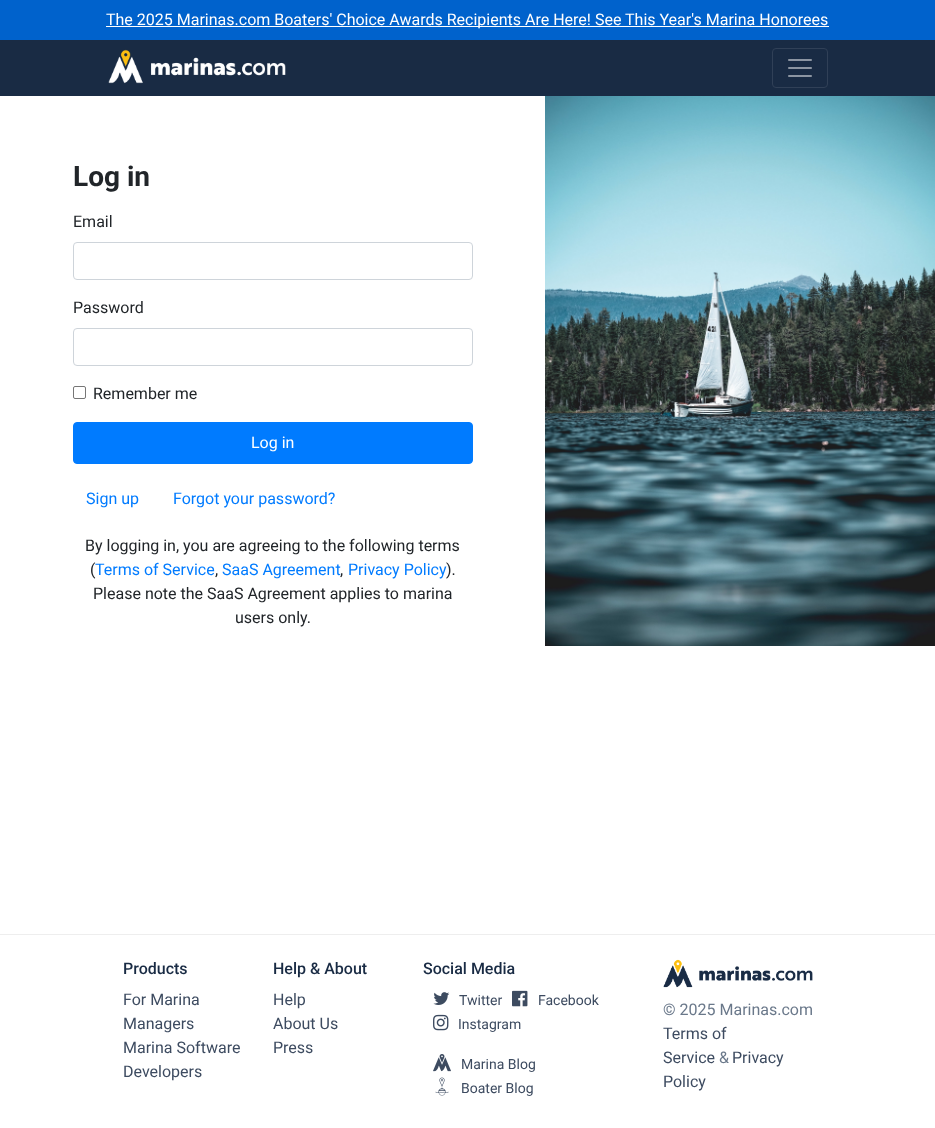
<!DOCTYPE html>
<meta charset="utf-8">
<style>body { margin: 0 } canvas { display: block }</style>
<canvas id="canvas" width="935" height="1128"></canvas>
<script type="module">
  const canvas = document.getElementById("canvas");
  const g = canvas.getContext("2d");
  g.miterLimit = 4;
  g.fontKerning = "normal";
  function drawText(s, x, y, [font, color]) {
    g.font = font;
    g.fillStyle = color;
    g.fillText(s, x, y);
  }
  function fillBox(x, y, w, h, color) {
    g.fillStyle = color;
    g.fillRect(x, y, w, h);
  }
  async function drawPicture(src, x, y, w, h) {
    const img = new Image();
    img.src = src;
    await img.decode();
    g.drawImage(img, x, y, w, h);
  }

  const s1 = ["16px Roboto", "#FFFFFF"];
  const s2 = ["bold 28px Roboto", "#212529"];
  const s3 = ["16px Roboto", "#212529"];
  const s4 = ["16px Roboto", "#007BFF"];
  const s5 = ["500 16px Roboto", "#192B44"];
  const s6 = ["16px Roboto", "#3D4B60"];
  const s7 = ["14px Roboto", "#3D4B60"];
  const s8 = ["16px Roboto", "#6A788A"];

  fillBox(0, 0, 935, 1128, "#FFFFFF");
  fillBox(0, 0, 935, 40, "#0062CC");
  fillBox(106, 26, 723, 1, "#FFFFFF");
  drawText("The 2025 Marinas.com Boaters' Choice Awards Recipients Are Here! See This Year's Marina Honorees", 106, 25, s1);
  fillBox(0, 40, 935, 56, "#192B44");
  await drawPicture("pic1.png", 108, 49, 178, 35);
  g.beginPath();
  g.roundRect(772.5, 48.5, 55, 39, 3.5);
  g.strokeStyle = "#304057";
  g.stroke();
  await drawPicture("pic2.png", 788, 59, 24, 18);
  drawText("Log in", 73, 186, s2);
  drawText("Email", 73, 227, s3);
  g.beginPath();
  g.roundRect(73.5, 242.5, 399, 37, 3.5);
  g.strokeStyle = "#CED4DA";
  g.stroke();
  drawText("Password", 73, 313, s3);
  g.beginPath();
  g.roundRect(73.5, 328.5, 399, 37, 3.5);
  g.stroke();
  g.beginPath();
  g.roundRect(73.5, 386.5, 12, 12, 1.5);
  g.strokeStyle = "#767676";
  g.stroke();
  drawText("Remember me", 93, 399, s3);
  g.fillStyle = "#007BFF";
  g.beginPath();
  g.roundRect(73.5, 422.5, 399, 41, 3.5);
  g.fill();
  g.strokeStyle = "#007BFF";
  g.stroke();
  drawText("Log in", 251, 448, s1);
  drawText("Sign up", 86, 504, s4);
  drawText("Forgot your password?", 173, 504, s4);
  drawText("By logging in, you are agreeing to the following terms", 85, 551, s3);
  drawText("(", 90, 575, s3);
  drawText("Terms of Service", 95, 575, s4);
  drawText(",", 215, 575, s3);
  drawText("SaaS Agreement", 222, 575, s4);
  drawText(",", 340, 575, s3);
  drawText("Privacy Policy", 348, 575, s4);
  drawText(").", 446, 575, s3);
  drawText("Please note the SaaS Agreement applies to marina", 93, 599, s3);
  drawText("users only.", 235, 623, s3);
  await drawPicture("pic3.png", 545, 96, 390, 550);
  fillBox(0, 934, 935, 1, "#EEEEEE");
  drawText("Products", 123, 974, s5);
  drawText("For Marina", 123, 1005, s6);
  drawText("Managers", 123, 1029, s6);
  drawText("Marina Software", 123, 1053, s6);
  drawText("Developers", 123, 1077, s6);
  drawText("Help & About", 273, 974, s5);
  drawText("Help", 273, 1005, s6);
  drawText("About Us", 273, 1029, s6);
  drawText("Press", 273, 1053, s6);
  drawText("Social Media", 423, 974, s5);
  await drawPicture("pic4.png", 433, 992, 17, 13);
  drawText("Twitter", 459, 1005, s7);
  await drawPicture("pic5.png", 512, 990, 16, 17);
  drawText("Facebook", 538, 1005, s7);
  await drawPicture("pic6.png", 433, 1014, 16, 17);
  drawText("Instagram", 458, 1029, s7);
  await drawPicture("pic7.png", 433, 1054, 18, 18);
  drawText("Marina Blog", 461, 1069, s7);
  await drawPicture("pic8.png", 435, 1077, 14, 19);
  drawText("Boater Blog", 461, 1093, s7);
  await drawPicture("pic9.png", 663, 959, 150, 29);
  drawText("© 2025 Marinas.com", 663, 1015, s8);
  drawText("Terms of", 663, 1039, s6);
  drawText("Service", 663, 1063, s6);
  drawText("&", 719, 1063, s8);
  drawText("Privacy", 732, 1063, s6);
  drawText("Policy", 663, 1087, s6);
</script>
